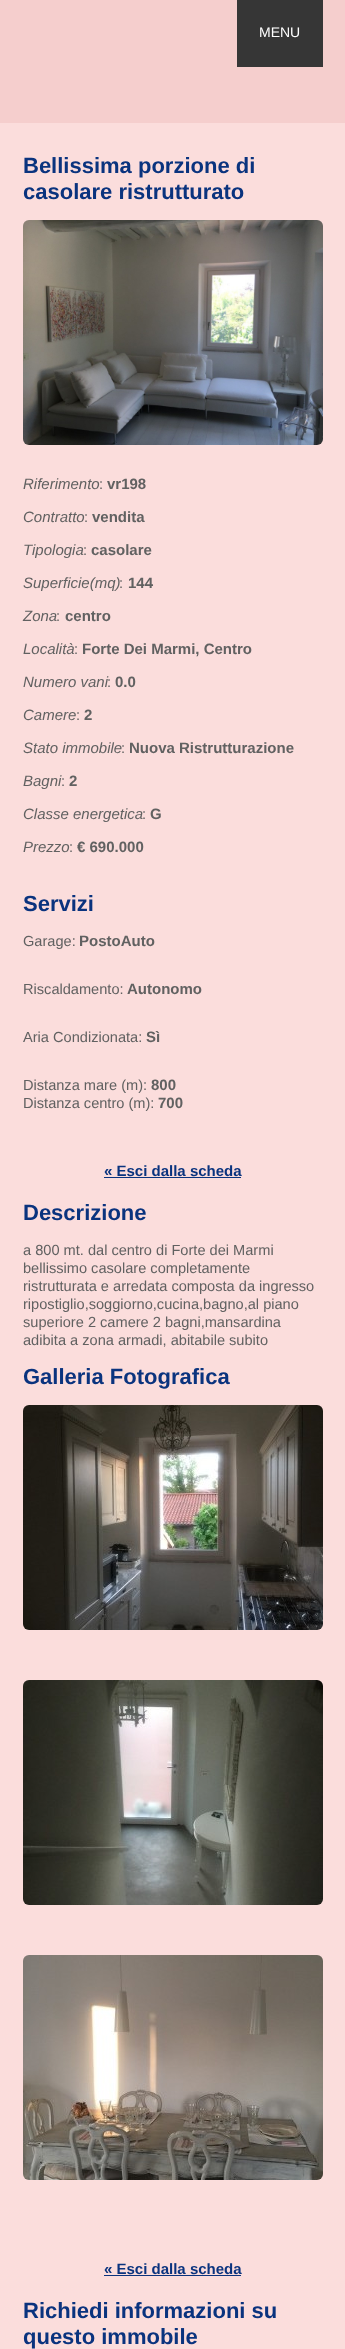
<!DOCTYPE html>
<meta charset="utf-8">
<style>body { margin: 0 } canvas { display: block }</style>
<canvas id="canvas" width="345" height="2349"></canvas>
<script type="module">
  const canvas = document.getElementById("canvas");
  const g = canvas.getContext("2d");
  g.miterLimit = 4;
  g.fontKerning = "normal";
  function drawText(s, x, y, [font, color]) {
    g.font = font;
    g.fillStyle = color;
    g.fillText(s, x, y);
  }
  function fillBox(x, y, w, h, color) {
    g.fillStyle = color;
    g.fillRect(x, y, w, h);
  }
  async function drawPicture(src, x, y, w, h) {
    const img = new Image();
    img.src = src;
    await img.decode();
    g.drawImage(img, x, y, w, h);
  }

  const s1 = ["14px Liberation Sans", "#FFFFFF"];
  const s2 = ["bold 22px Liberation Sans", "#0A337E"];
  const s3 = ["italic 15px Liberation Sans", "#616161"];
  const s4 = ["14.6px Liberation Sans", "#616161"];
  const s5 = ["bold 15px Liberation Sans", "#616161"];
  const s6 = ["bold 15px Liberation Sans", "#0A337E"];

  fillBox(0, 0, 345, 2349, "#F5CECD");
  fillBox(237, 0, 86, 67, "#363636");
  drawText("MENU", 259, 37, s1);
  fillBox(0, 123, 345, 2226, "#FBDDDC");
  drawText("Bellissima porzione di", 23, 173, s2);
  drawText("casolare ristrutturato", 23, 199, s2);
  await drawPicture("pic1.png", 23, 220, 300, 225);
  drawText("Riferimento", 23, 489, s3);
  drawText(":", 99, 489, s4);
  drawText("vr198", 107, 489, s5);
  drawText("Contratto", 23, 522, s3);
  drawText(":", 84, 522, s4);
  drawText("vendita", 92, 522, s5);
  drawText("Tipologia", 23, 555, s3);
  drawText(":", 83, 555, s4);
  drawText("casolare", 91, 555, s5);
  drawText("Superficie(mq)", 23, 588, s3);
  drawText(":", 119, 588, s4);
  drawText("144", 128, 588, s5);
  drawText("Zona", 23, 621, s3);
  drawText(":", 56, 621, s4);
  drawText("centro", 65, 621, s5);
  drawText("Località", 23, 654, s3);
  drawText(":", 74, 654, s4);
  drawText("Forte Dei Marmi, Centro", 82, 654, s5);
  drawText("Numero vani", 23, 687, s3);
  drawText(":", 107, 687, s4);
  drawText("0.0", 115, 687, s5);
  drawText("Camere", 23, 720, s3);
  drawText(":", 76, 720, s4);
  drawText("2", 84, 720, s5);
  drawText("Stato immobile", 23, 753, s3);
  drawText(":", 121, 753, s4);
  drawText("Nuova Ristrutturazione", 129, 753, s5);
  drawText("Bagni", 23, 786, s3);
  drawText(":", 61, 786, s4);
  drawText("2", 69, 786, s5);
  drawText("Classe energetica", 23, 819, s3);
  drawText(":", 142, 819, s4);
  drawText("G", 150, 819, s5);
  drawText("Prezzo", 23, 852, s3);
  drawText(":", 69, 852, s4);
  drawText("€ 690.000", 77, 852, s5);
  drawText("Servizi", 23, 911, s2);
  drawText("Garage:", 23, 946, s4);
  drawText("PostoAuto", 79, 946, s5);
  drawText("Riscaldamento:", 23, 994, s4);
  drawText("Autonomo", 127, 994, s5);
  drawText("Aria Condizionata:", 23, 1042, s4);
  drawText("Sì", 146, 1042, s5);
  drawText("Distanza mare (m):", 23, 1090, s4);
  drawText("800", 151, 1090, s5);
  drawText("Distanza centro (m):", 23, 1108, s4);
  drawText("700", 158, 1108, s5);
  drawText("« Esci dalla scheda", 104, 1176, s6);
  fillBox(104, 1177, 137, 1, "#0A337E");
  drawText("Descrizione", 23, 1220, s2);
  drawText("a 800 mt. dal centro di Forte dei Marmi", 23, 1255, s4);
  drawText("bellissimo casolare completamente", 23, 1273, s4);
  drawText("ristrutturata e arredata composta da ingresso", 23, 1291, s4);
  drawText("ripostiglio,soggiorno,cucina,bagno,al piano", 23, 1309, s4);
  drawText("superiore 2 camere 2 bagni,mansardina", 23, 1327, s4);
  drawText("adibita a zona armadi, abitabile subito", 23, 1345, s4);
  drawText("Galleria Fotografica", 23, 1384, s2);
  await drawPicture("pic2.png", 23, 1405, 300, 225);
  await drawPicture("pic3.png", 23, 1680, 300, 225);
  await drawPicture("pic4.png", 23, 1955, 300, 225);
  drawText("« Esci dalla scheda", 104, 2274, s6);
  fillBox(104, 2275, 137, 1, "#0A337E");
  drawText("Richiedi informazioni su", 23, 2318, s2);
  drawText("questo immobile", 23, 2344, s2);
</script>
